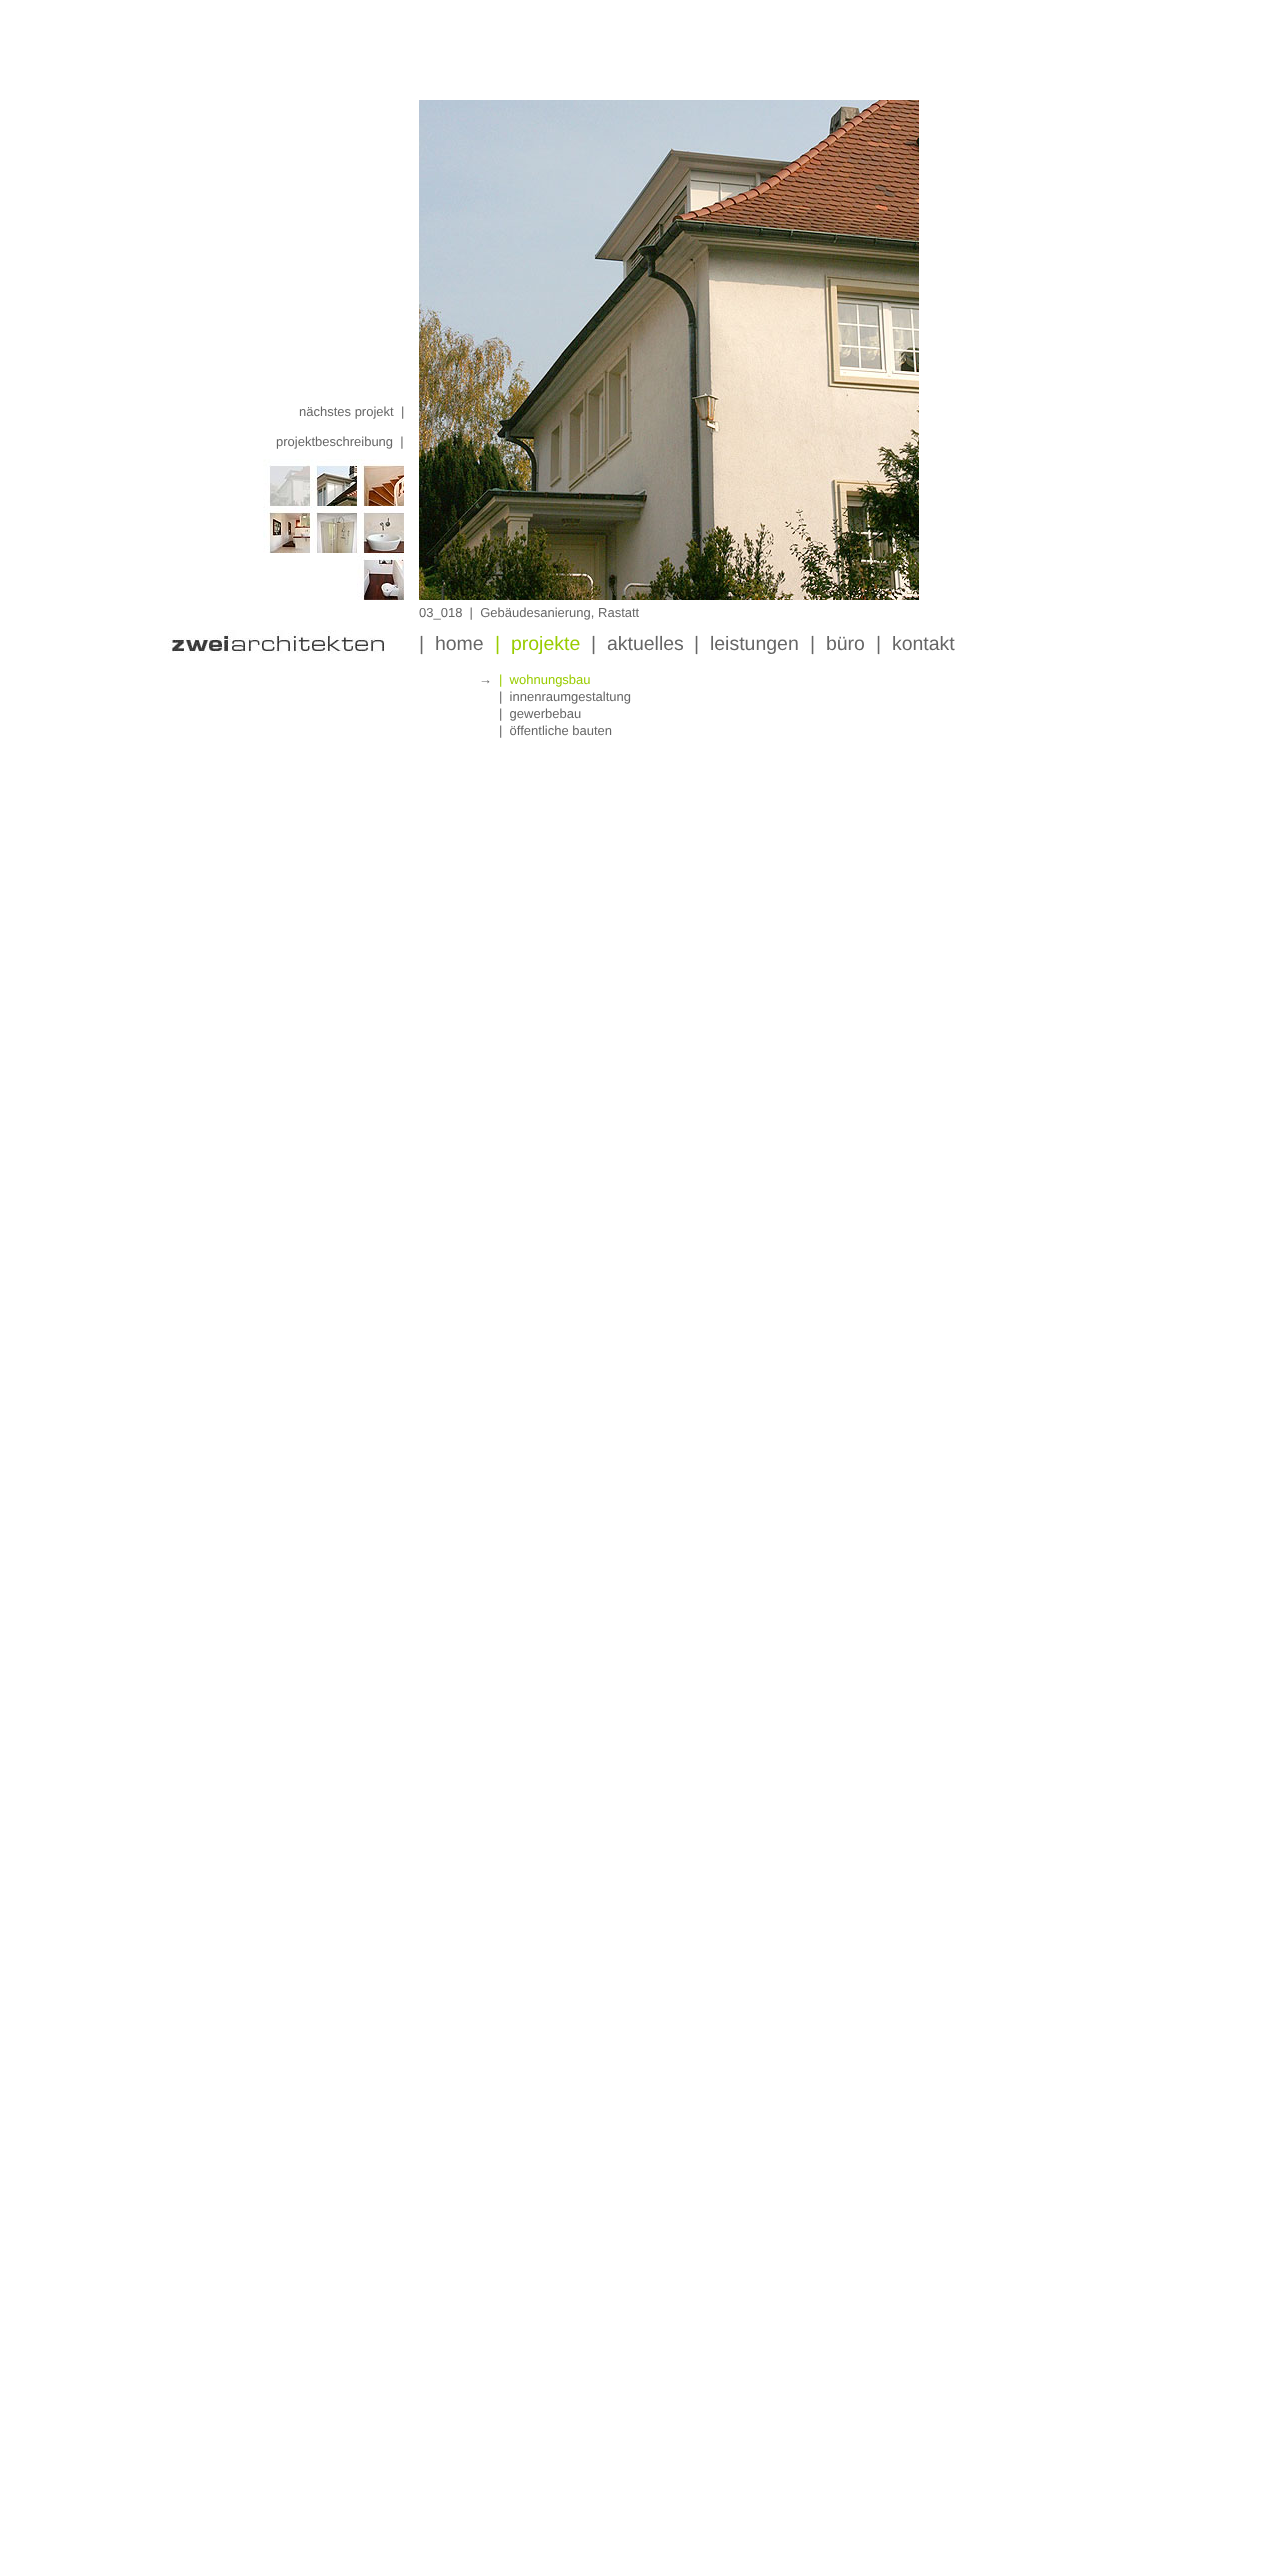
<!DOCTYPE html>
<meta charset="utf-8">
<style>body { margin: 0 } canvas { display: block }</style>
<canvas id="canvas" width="1288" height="2561"></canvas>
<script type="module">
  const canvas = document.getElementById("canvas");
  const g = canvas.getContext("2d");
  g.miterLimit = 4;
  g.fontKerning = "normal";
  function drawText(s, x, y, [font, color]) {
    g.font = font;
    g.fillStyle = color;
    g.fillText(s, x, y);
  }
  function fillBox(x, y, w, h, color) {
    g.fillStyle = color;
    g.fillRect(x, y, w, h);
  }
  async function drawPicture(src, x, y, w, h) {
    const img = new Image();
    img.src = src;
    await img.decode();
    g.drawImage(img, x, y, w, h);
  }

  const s1 = ["13px Liberation Sans", "#666666"];
  const s2 = ["19.5px Liberation Sans", "#666666"];
  const s3 = ["19.5px Liberation Sans", "#99CC00"];
  const s4 = ["13px Liberation Sans", "#99CC00"];

  fillBox(0, 0, 1288, 2561, "#FFFFFF");
  drawText("nächstes projekt  |", 299, 416, s1);
  drawText("projektbeschreibung  |", 276, 446, s1);
  await drawPicture("pic1.png", 263, 459, 47, 47);
  await drawPicture("pic2.png", 310, 459, 47, 47);
  await drawPicture("pic3.png", 357, 459, 47, 47);
  await drawPicture("pic4.png", 263, 506, 47, 47);
  await drawPicture("pic5.png", 310, 506, 47, 47);
  await drawPicture("pic6.png", 357, 506, 47, 47);
  await drawPicture("pic7.png", 357, 553, 47, 47);
  await drawPicture("pic8.png", 419, 100, 500, 500);
  await drawPicture("pic9.png", 168, 630, 217, 24);
  drawText("03_018  |  Gebäudesanierung, Rastatt", 419, 617, s1);
  drawText("|  home", 419, 650, s2);
  drawText("|  projekte", 495, 650, s3);
  drawText("|  aktuelles", 591, 650, s2);
  drawText("|  leistungen", 694, 650, s2);
  drawText("|  büro", 810, 650, s2);
  drawText("|  kontakt", 876, 650, s2);
  drawText("→", 479, 684, s1);
  drawText("|  wohnungsbau", 499, 684, s4);
  drawText("|  innenraumgestaltung", 499, 701, s1);
  drawText("|  gewerbebau", 499, 718, s1);
  drawText("|  öffentliche bauten", 499, 735, s1);
</script>
